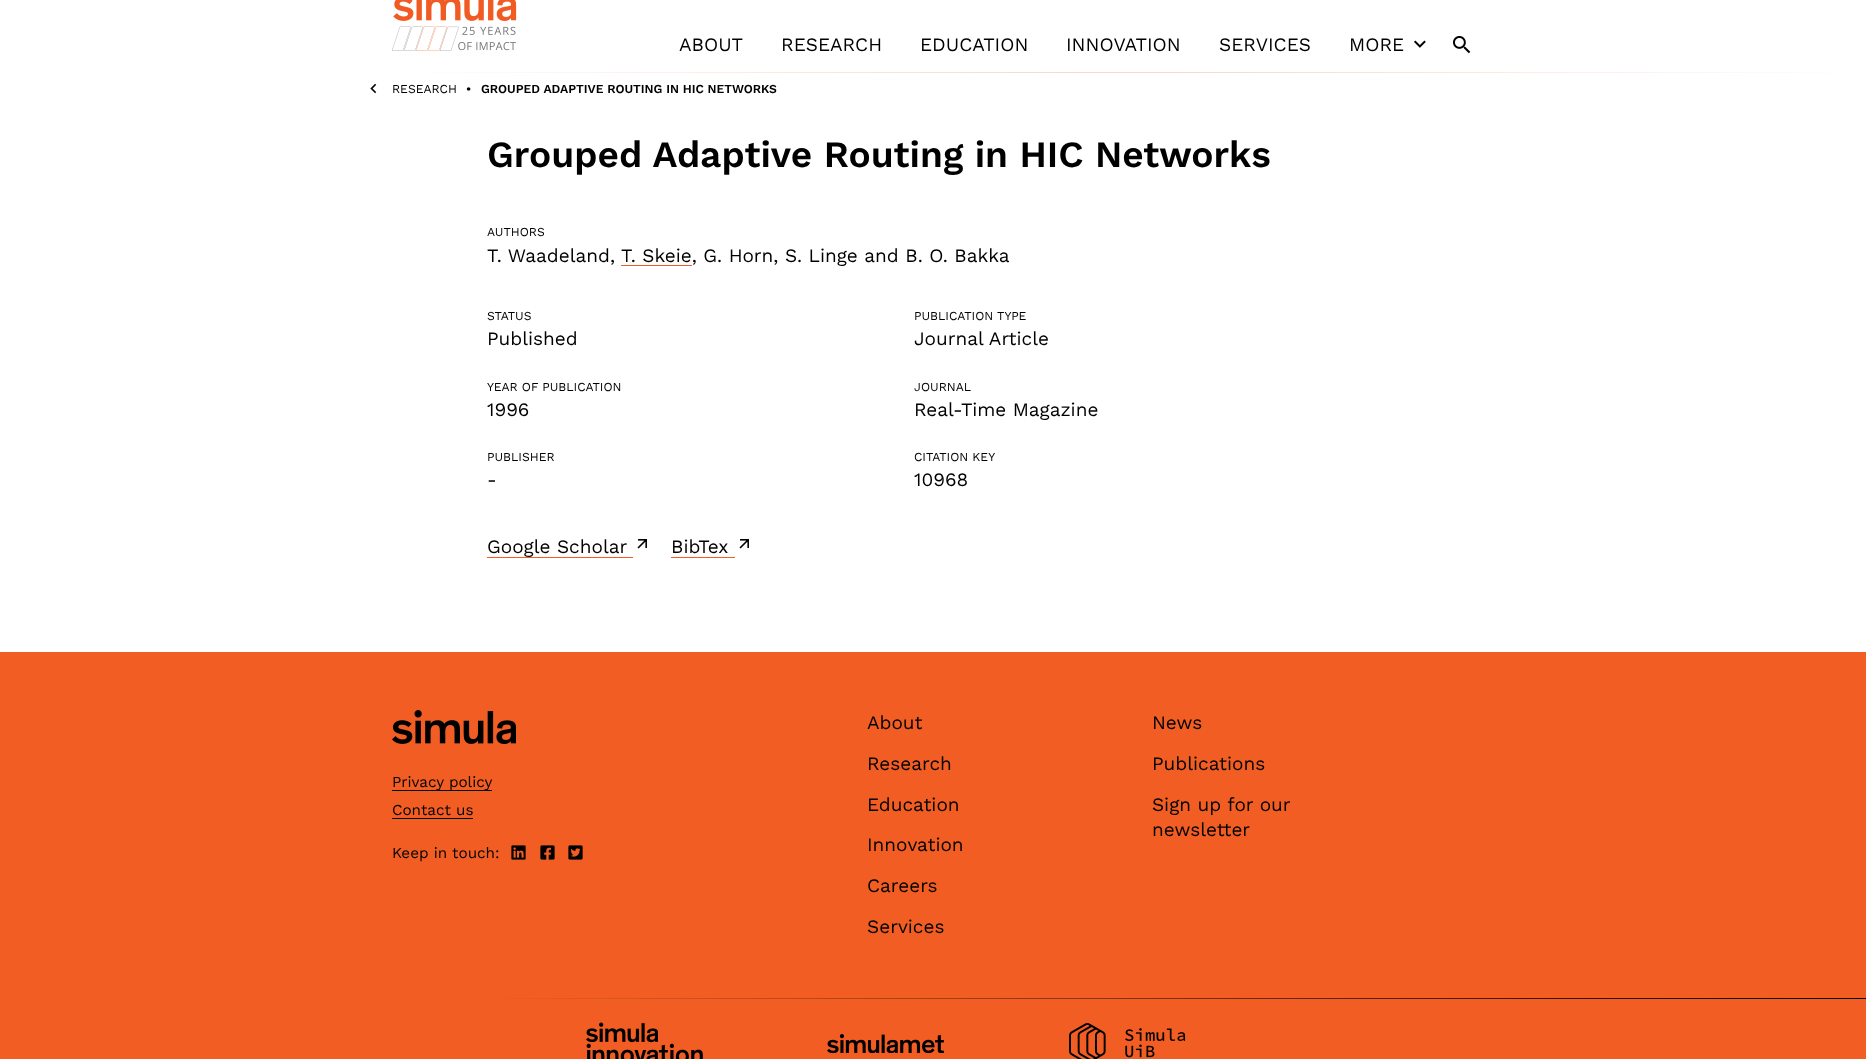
<!DOCTYPE html>
<meta charset="utf-8">
<style>body { margin: 0 } canvas { display: block }</style>
<canvas id="canvas" width="1866" height="1059"></canvas>
<script type="module">
  const canvas = document.getElementById("canvas");
  const g = canvas.getContext("2d");
  g.miterLimit = 4;
  g.fontKerning = "normal";
  function drawText(s, x, y, [font, color]) {
    g.font = font;
    g.fillStyle = color;
    g.fillText(s, x, y);
  }
  function fillBox(x, y, w, h, color) {
    g.fillStyle = color;
    g.fillRect(x, y, w, h);
  }
  async function drawPicture(src, x, y, w, h) {
    const img = new Image();
    img.src = src;
    await img.decode();
    g.drawImage(img, x, y, w, h);
  }
  let gradient;

  const s1 = ["19px Work Sans", "#000000"];
  const s2 = ["12.2px Work Sans", "#000000"];
  const s3 = ["600 12.2px Work Sans", "#000000"];
  const s4 = ["600 37.1px Work Sans", "#000000"];
  const s5 = ["15.25px Work Sans", "#000000"];

  fillBox(0, 0, 1866, 1059, "#FFFFFF");
  await drawPicture("pic1.png", 392, 0, 125, 51);
  drawText("ABOUT", 679, 51, s1);
  drawText("RESEARCH", 781, 51, s1);
  drawText("EDUCATION", 920, 51, s1);
  drawText("INNOVATION", 1066, 51, s1);
  drawText("SERVICES", 1219, 51, s1);
  drawText("MORE", 1349, 51, s1);
  await drawPicture("pic2.png", 1414, 40, 12, 8);
  await drawPicture("pic3.png", 1453, 36, 18, 18);
  gradient = g.createLinearGradient(392, 73, 1866, 72);
  gradient.addColorStop(0, "#FFFFFF");
  gradient.addColorStop(0.5, "#FBD5C8");
  gradient.addColorStop(1, "#FFFFFF");
  g.fillStyle = gradient;
  g.fillRect(426, 72, 1407, 1);
  await drawPicture("pic4.png", 370, 83, 7, 11);
  drawText("RESEARCH", 392, 93, s2);
  drawText("•", 466, 93, s3);
  drawText("GROUPED ADAPTIVE ROUTING IN HIC NETWORKS", 481, 93, s3);
  drawText("Grouped Adaptive Routing in HIC Networks", 487, 167, s4);
  drawText("AUTHORS", 487, 236, s2);
  drawText("T. Waadeland,", 487, 262, s1);
  fillBox(621, 265, 71, 1, "#F15D23");
  drawText("T. Skeie, G. Horn, S. Linge and B. O. Bakka", 621, 262, s1);
  drawText("STATUS", 487, 320, s2);
  drawText("Published", 487, 345, s1);
  drawText("PUBLICATION TYPE", 914, 320, s2);
  drawText("Journal Article", 914, 345, s1);
  drawText("YEAR OF PUBLICATION", 487, 391, s2);
  drawText("1996", 487, 416, s1);
  drawText("JOURNAL", 914, 391, s2);
  drawText("Real-Time Magazine", 914, 416, s1);
  drawText("PUBLISHER", 487, 461, s2);
  drawText("-", 487, 486, s1);
  drawText("CITATION KEY", 914, 461, s2);
  drawText("10968", 914, 486, s1);
  fillBox(487, 557, 146, 1, "#F15D23");
  drawText("Google Scholar", 487, 553, s1);
  await drawPicture("pic5.png", 637, 539, 10, 10);
  drawText("BibTex", 671, 553, s1);
  fillBox(671, 557, 64, 1, "#F15D23");
  await drawPicture("pic5.png", 739, 539, 10, 10);
  fillBox(0, 652, 1866, 407, "#F15D23");
  await drawPicture("pic6.png", 392, 710, 124, 34);
  fillBox(392, 790, 100, 1, "#000000");
  drawText("Privacy policy", 392, 787, s5);
  drawText("Contact us", 392, 815, s5);
  fillBox(392, 818, 81, 1, "#000000");
  drawText("Keep in touch:", 392, 858, s5);
  await drawPicture("pic7.png", 511, 845, 15, 15);
  await drawPicture("pic8.png", 540, 845, 15, 15);
  await drawPicture("pic9.png", 568, 845, 15, 15);
  drawText("About", 867, 729, s1);
  drawText("Research", 867, 770, s1);
  drawText("Education", 867, 811, s1);
  drawText("Innovation", 867, 851, s1);
  drawText("Careers", 867, 892, s1);
  drawText("Services", 867, 933, s1);
  drawText("News", 1152, 729, s1);
  drawText("Publications", 1152, 770, s1);
  drawText("Sign up for our", 1152, 811, s1);
  drawText("newsletter", 1152, 836, s1);
  gradient = g.createLinearGradient(487, 999, 1866, 999);
  gradient.addColorStop(0, "#F15D23");
  gradient.addColorStop(1, "#000000");
  g.fillStyle = gradient;
  g.fillRect(501, 998, 1365, 1);
  await drawPicture("pic10.png", 586, 1022, 117, 37);
  await drawPicture("pic11.png", 827, 1034, 117, 19);
  await drawPicture("pic12.png", 1069, 1023, 117, 36);
</script>
